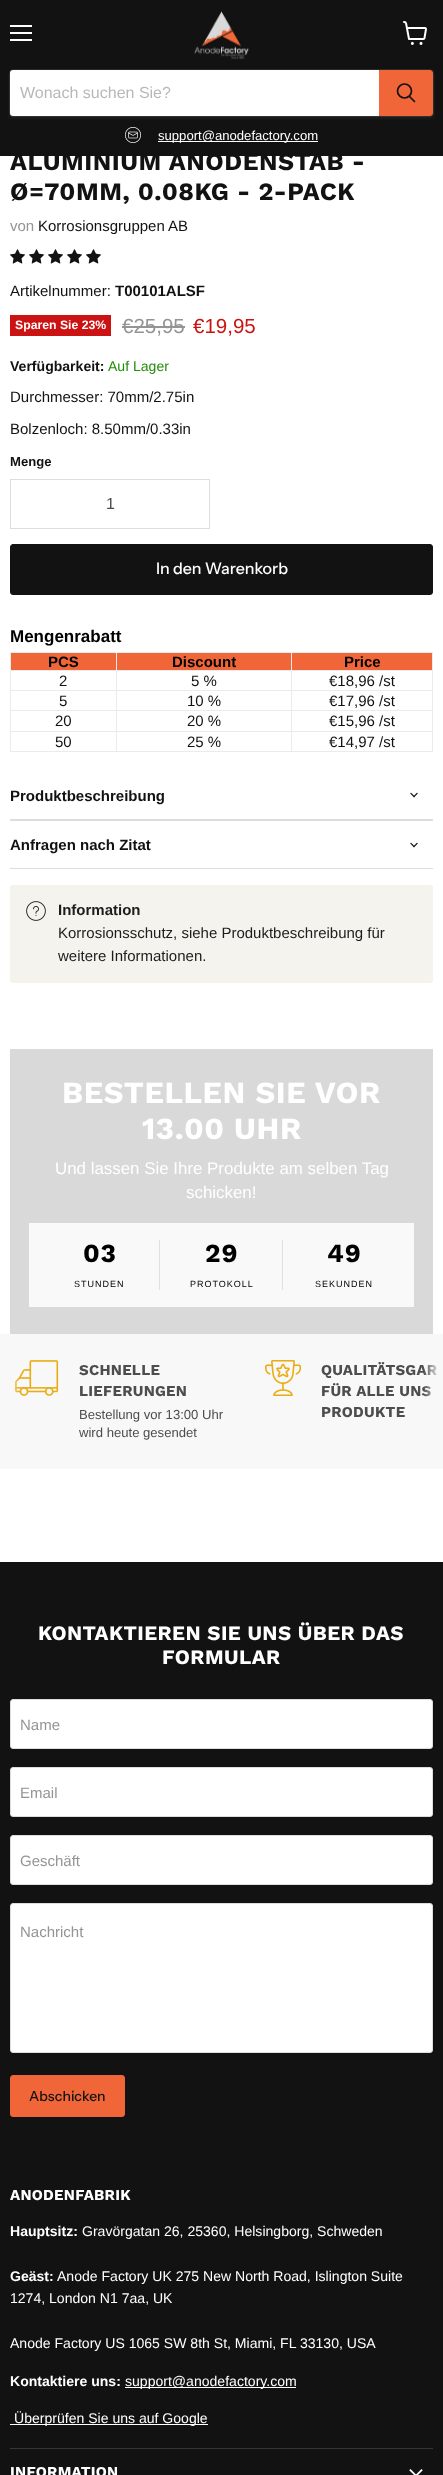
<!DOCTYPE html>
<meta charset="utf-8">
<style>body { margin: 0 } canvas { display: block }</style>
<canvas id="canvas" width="443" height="2475"></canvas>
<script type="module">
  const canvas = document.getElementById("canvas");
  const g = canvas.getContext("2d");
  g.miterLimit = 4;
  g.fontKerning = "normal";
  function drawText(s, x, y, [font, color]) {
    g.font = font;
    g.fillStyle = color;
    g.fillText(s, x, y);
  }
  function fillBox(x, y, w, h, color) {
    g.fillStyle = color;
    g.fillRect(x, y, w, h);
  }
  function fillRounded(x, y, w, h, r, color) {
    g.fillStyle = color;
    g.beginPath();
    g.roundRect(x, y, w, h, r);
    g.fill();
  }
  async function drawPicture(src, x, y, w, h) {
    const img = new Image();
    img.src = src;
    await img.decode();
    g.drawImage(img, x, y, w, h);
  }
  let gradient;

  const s1 = ["16px Liberation Sans", "#B8B8B8"];
  const s2 = ["13.1px Liberation Sans", "#FFFFFF"];
  const s3 = ["bold 25px Work Sans", "#121212"];
  const s4 = ["15px Liberation Sans", "#949494"];
  const s5 = ["15px Liberation Sans", "#121212"];
  const s6 = ["bold 15px Liberation Sans", "#121212"];
  const s7 = ["bold 12.25px Liberation Sans", "#FFFFFF"];
  const s8 = ["20.5px Liberation Sans", "#949494"];
  const s9 = ["20.5px Liberation Sans", "#CC1313"];
  const s10 = ["bold 14.05px Liberation Sans", "#121212"];
  const s11 = ["14.05px Liberation Sans", "#268C0B"];
  const s12 = ["bold 13.1px Liberation Sans", "#121212"];
  const s13 = ["16px Liberation Sans", "#4D4D4D"];
  const s14 = ["500 16px Instrument Sans", "#FFFFFF"];
  const s15 = ["bold 17px Liberation Sans", "#000000"];
  const s16 = ["bold 15px Liberation Sans", "#000000"];
  const s17 = ["bold 15px Liberation Sans", "#1D1D1D"];
  const s18 = ["15px Liberation Sans", "#1D1D1D"];
  const s19 = ["bold 30.75px Work Sans", "#FFFFFF"];
  const s20 = ["16.9px Liberation Sans", "#FFFFFF"];
  const s21 = ["bold 26px Work Sans", "#000000"];
  const s22 = ["9px Liberation Sans", "#000000"];
  const s23 = ["bold 15px Work Sans", "#4D4D4D"];
  const s24 = ["13.1px Liberation Sans", "#4D4D4D"];
  const s25 = ["bold 20.5px Work Sans", "#FFFFFF"];
  const s26 = ["500 14px Instrument Sans", "#121212"];
  const s27 = ["bold 15px Work Sans", "#FFFFFF"];
  const s28 = ["bold 14.05px Liberation Sans", "#FFFFFF"];
  const s29 = ["14.05px Liberation Sans", "#FFFFFF"];

  fillBox(0, 0, 443, 2475, "#FFFFFF");
  fillBox(0, 0, 443, 156, "#121212");
  fillBox(10, 25, 22, 2, "#FFFFFF");
  fillBox(10, 32, 22, 2, "#FFFFFF");
  fillBox(10, 39, 22, 2, "#FFFFFF");
  await drawPicture("pic1.png", 403, 21, 24, 24);
  await drawPicture("pic2.png", 194, 11, 55, 49);
  g.fillStyle = "rgba(128, 128, 128, 0.11)";
  g.filter = "blur(1.5px)";
  g.beginPath();
  g.roundRect(9, 71, 425, 48, 4);
  g.fill();
  g.filter = "none";
  g.beginPath();
  g.roundRect(9.5, 69.5, 424, 47, 3.5);
  g.strokeStyle = "rgba(128, 128, 128, 0.2)";
  g.stroke();
  g.fillStyle = "#FFFFFF";
  g.beginPath();
  g.roundRect(10, 70, 369, 46, [3, 0, 0, 3]);
  g.fill();
  drawText("Wonach suchen Sie?", 20, 98, s1);
  g.fillStyle = "#F16638";
  g.beginPath();
  g.roundRect(379.5, 70.5, 53, 45, [0, 2.5, 2.5, 0]);
  g.fill();
  g.strokeStyle = "#F16638";
  g.stroke();
  g.beginPath();
  g.moveTo(414.5, 101.5);
  g.lineTo(409.5, 96.5);
  g.strokeStyle = "#121212";
  g.lineWidth = 1.7;
  g.lineCap = "round";
  g.stroke();
  g.beginPath();
  g.arc(404.5, 91, 7, 0, Math.PI * 2);
  g.stroke();
  await drawPicture("pic3.png", 125, 127, 16, 16);
  fillBox(158, 141, 160, 1, "#FFFFFF");
  drawText("support@anodefactory.com", 158, 140, s2);
  g.letterSpacing = "0.5px";
  drawText("ALUMINIUM ANODENSTAB -", 10, 170, s3);
  drawText("Ø=70MM, 0.08KG - 2-PACK", 10, 200, s3);
  g.letterSpacing = "0px";
  drawText("von", 10, 231, s4);
  drawText("Korrosionsgruppen AB", 38, 231, s5);
  await drawPicture("pic4.png", 10, 249, 15, 15);
  await drawPicture("pic4.png", 29, 249, 15, 15);
  await drawPicture("pic4.png", 48, 249, 15, 15);
  await drawPicture("pic4.png", 67, 249, 15, 15);
  await drawPicture("pic4.png", 86, 249, 15, 15);
  drawText("Artikelnummer:", 10, 296, s5);
  drawText("T00101ALSF", 115, 296, s6);
  fillBox(10, 315, 101, 21, "#CC1313");
  drawText("Sparen Sie 23%", 15, 329, s7);
  drawText("€25,95", 122, 333, s8);
  fillBox(122, 326, 63, 2, "#949494");
  drawText("€19,95", 193, 333, s9);
  drawText("Verfügbarkeit:", 10, 371, s10);
  drawText("Auf Lager", 108, 371, s11);
  drawText("Durchmesser: 70mm/2.75in", 10, 402, s5);
  drawText("Bolzenloch: 8.50mm/0.33in", 10, 434, s5);
  drawText("Menge", 10, 466, s12);
  g.strokeStyle = "#DDDDDD";
  g.lineWidth = 1;
  g.strokeRect(10.5, 479.5, 199, 49);
  drawText("1", 106, 509, s13);
  g.fillStyle = "#121212";
  g.beginPath();
  g.roundRect(10.5, 544.5, 422, 50, 2.5);
  g.fill();
  g.strokeStyle = "#121212";
  g.stroke();
  drawText("In den Warenkorb", 156, 574, s14);
  drawText("Mengenrabatt", 10, 642, s15);
  fillBox(11, 653, 105, 17, "#F16638");
  fillBox(291, 652, 142, 1, "#EBEBEB");
  fillBox(291, 670, 142, 1, "#EBEBEB");
  fillBox(291, 690, 142, 1, "#EBEBEB");
  fillBox(291, 710, 142, 1, "#EBEBEB");
  fillBox(291, 731, 142, 1, "#EBEBEB");
  fillBox(432, 731, 1, 21, "#EBEBEB");
  fillBox(291, 751, 142, 1, "#EBEBEB");
  fillBox(291, 731, 1, 21, "#EBEBEB");
  fillBox(116, 731, 176, 1, "#EBEBEB");
  fillBox(291, 710, 1, 22, "#EBEBEB");
  fillBox(116, 710, 176, 1, "#EBEBEB");
  fillBox(291, 690, 1, 21, "#EBEBEB");
  fillBox(116, 690, 176, 1, "#EBEBEB");
  fillBox(291, 670, 1, 21, "#EBEBEB");
  fillBox(116, 670, 176, 1, "#EBEBEB");
  fillBox(291, 652, 1, 19, "#EBEBEB");
  fillBox(116, 652, 176, 1, "#EBEBEB");
  fillBox(116, 751, 176, 1, "#EBEBEB");
  fillBox(116, 731, 1, 21, "#EBEBEB");
  fillBox(10, 731, 107, 1, "#EBEBEB");
  fillBox(116, 710, 1, 22, "#EBEBEB");
  fillBox(10, 710, 107, 1, "#EBEBEB");
  fillBox(116, 690, 1, 21, "#EBEBEB");
  fillBox(10, 690, 107, 1, "#EBEBEB");
  fillBox(116, 670, 1, 21, "#EBEBEB");
  fillBox(10, 670, 107, 1, "#EBEBEB");
  fillBox(116, 652, 1, 19, "#EBEBEB");
  fillBox(10, 652, 107, 1, "#EBEBEB");
  fillBox(10, 751, 107, 1, "#EBEBEB");
  fillBox(10, 731, 1, 21, "#EBEBEB");
  fillBox(10, 710, 1, 22, "#EBEBEB");
  fillBox(10, 690, 1, 21, "#EBEBEB");
  fillBox(10, 670, 1, 21, "#EBEBEB");
  fillBox(10, 652, 1, 19, "#EBEBEB");
  drawText("PCS", 48, 667, s16);
  fillBox(117, 653, 174, 17, "#F16638");
  drawText("Discount", 172, 667, s16);
  fillBox(292, 653, 140, 17, "#F16638");
  fillBox(432, 710, 1, 22, "#EBEBEB");
  fillBox(432, 690, 1, 21, "#EBEBEB");
  fillBox(432, 670, 1, 21, "#EBEBEB");
  fillBox(432, 652, 1, 19, "#EBEBEB");
  drawText("Price", 344, 667, s16);
  drawText("2", 59, 686, s5);
  drawText("5 %", 191, 686, s5);
  drawText("€18,96 /st", 329, 686, s5);
  drawText("5", 59, 706, s5);
  drawText("10 %", 187, 706, s5);
  drawText("€17,96 /st", 329, 706, s5);
  drawText("20", 55, 726, s5);
  drawText("20 %", 187, 726, s5);
  drawText("€15,96 /st", 329, 726, s5);
  drawText("50", 55, 747, s5);
  drawText("25 %", 187, 747, s5);
  drawText("€14,97 /st", 329, 747, s5);
  fillBox(10, 819, 423, 2, "#DDDDDD");
  drawText("Produktbeschreibung", 10, 801, s6);
  await drawPicture("pic5.png", 410, 792, 8, 6);
  fillBox(10, 868, 423, 1, "#DDDDDD");
  drawText("Anfragen nach Zitat", 10, 850, s6);
  await drawPicture("pic5.png", 410, 842, 8, 6);
  fillRounded(10, 885, 423, 98, 3, "#F5F3ED");
  await drawPicture("pic6.png", 26, 901, 20, 20);
  drawText("Information", 58, 915, s17);
  drawText("Korrosionsschutz, siehe Produktbeschreibung für", 58, 938, s18);
  drawText("weitere Informationen.", 58, 961, s18);
  fillBox(10, 1049, 423, 285, "#D9D9D9");
  g.letterSpacing = "0.6px";
  drawText("BESTELLEN SIE VOR", 62, 1103, s19);
  drawText("13.00 UHR", 142, 1139, s19);
  g.letterSpacing = "0px";
  drawText("Und lassen Sie Ihre Produkte am selben Tag", 55, 1174, s20);
  drawText("schicken!", 186, 1198, s20);
  fillBox(29, 1223, 385, 84, "#F9F9F9");
  g.letterSpacing = "1px";
  drawText("03", 83, 1262, s21);
  fillBox(159, 1240, 1, 50, "#E0E0E0");
  drawText("STUNDEN", 74, 1287, s22);
  drawText("29", 205, 1262, s21);
  fillBox(282, 1240, 1, 50, "#E0E0E0");
  drawText("PROTOKOLL", 190, 1287, s22);
  drawText("49", 327, 1262, s21);
  drawText("SEKUNDEN", 315, 1287, s22);
  fillBox(2, 1334, 439, 135, "#F8F8F8");
  await drawPicture("pic7.png", 15, 1360, 44, 36);
  gradient = g.createLinearGradient(0, 1402, 20, 1402);
  gradient.addColorStop(0.1, "#F8F8F8");
  gradient.addColorStop(1, "rgba(248, 248, 248, 0)");
  g.fillStyle = gradient;
  g.fillRect(0, 1334, 20, 135);
  g.letterSpacing = "0.25px";
  drawText("QUALITÄTSGAR", 321, 1375, s23);
  drawText("FÜR ALLE UNS", 321, 1396, s23);
  gradient = g.createLinearGradient(443, 1402, 423, 1402);
  gradient.addColorStop(0.1, "#F8F8F8");
  gradient.addColorStop(1, "rgba(248, 248, 248, 0)");
  g.fillStyle = gradient;
  g.fillRect(423, 1334, 20, 135);
  drawText("SCHNELLE", 79, 1375, s23);
  drawText("LIEFERUNGEN", 79, 1396, s23);
  g.letterSpacing = "0px";
  drawText("Bestellung vor 13:00 Uhr", 79, 1419, s24);
  drawText("wird heute gesendet", 79, 1437, s24);
  await drawPicture("pic8.png", 265, 1360, 36, 36);
  g.letterSpacing = "0.25px";
  drawText("PRODUKTE", 321, 1417, s23);
  fillBox(0, 1562, 443, 913, "#121212");
  g.letterSpacing = "0.4px";
  drawText("KONTAKTIEREN SIE UNS ÜBER DAS", 38, 1640, s25);
  drawText("FORMULAR", 162, 1664, s25);
  g.beginPath();
  g.roundRect(10.5, 1699.5, 422, 49, 2.5);
  g.fill();
  g.strokeStyle = "#DDDDDD";
  g.stroke();
  g.letterSpacing = "0px";
  drawText("Name", 20, 1730, s4);
  g.fillStyle = "#FFFFFF";
  g.beginPath();
  g.roundRect(10.5, 1767.5, 422, 49, 2.5);
  g.fill();
  g.stroke();
  drawText("Email", 20, 1798, s4);
  g.fillStyle = "#FFFFFF";
  g.beginPath();
  g.roundRect(10.5, 1835.5, 422, 49, 2.5);
  g.fill();
  g.stroke();
  drawText("Geschäft", 20, 1866, s4);
  g.fillStyle = "#FFFFFF";
  g.beginPath();
  g.roundRect(10.5, 1903.5, 422, 149, 2.5);
  g.fill();
  g.stroke();
  drawText("Nachricht", 20, 1937, s4);
  g.fillStyle = "#F16638";
  g.beginPath();
  g.roundRect(10.5, 2075.5, 114, 41, 2.5);
  g.fill();
  g.strokeStyle = "#F16638";
  g.stroke();
  drawText("Abschicken", 29, 2101, s26);
  fillBox(10, 2448, 423, 1, "#363636");
  g.letterSpacing = "0.25px";
  drawText("ANODENFABRIK", 10, 2200, s27);
  g.letterSpacing = "0px";
  drawText("Hauptsitz:", 10, 2236, s28);
  drawText("Gravörgatan 26, 25360, Helsingborg, Schweden", 82, 2236, s29);
  drawText("Geäst:", 10, 2281, s28);
  drawText("Anode Factory UK 275 New North Road, Islington Suite", 57, 2281, s29);
  drawText("1274, London N1 7aa, UK", 10, 2303, s29);
  drawText("Anode Factory US 1065 SW 8th St, Miami, FL 33130, USA", 10, 2348, s29);
  drawText("Kontaktiere uns:", 10, 2386, s28);
  fillBox(125, 2387, 171, 1, "#FFFFFF");
  drawText("support@anodefactory.com", 125, 2386, s29);
  fillBox(10, 2424, 198, 1, "#FFFFFF");
  drawText("Überprüfen Sie uns auf Google", 14, 2423, s29);
  g.letterSpacing = "0.25px";
  drawText("INFORMATION", 10, 2477, s27);
  await drawPicture("pic9.png", 409, 2469, 14, 6);
</script>
